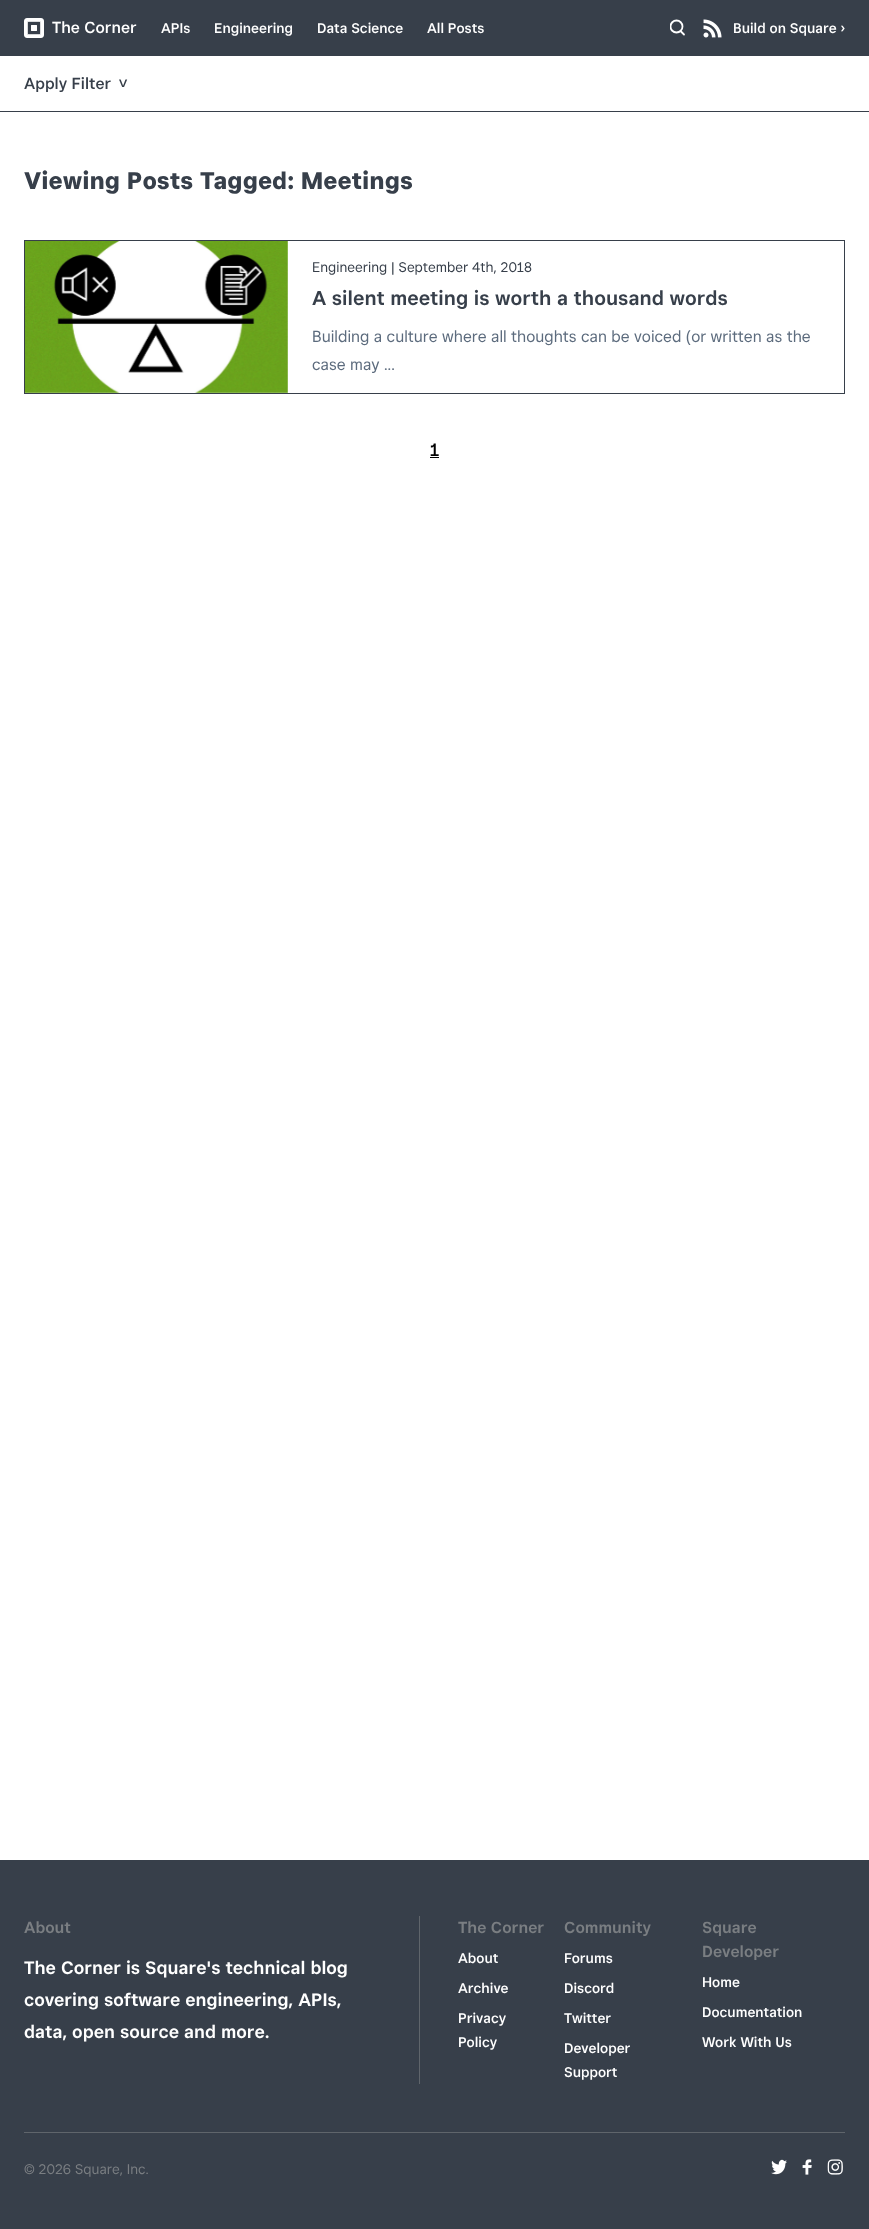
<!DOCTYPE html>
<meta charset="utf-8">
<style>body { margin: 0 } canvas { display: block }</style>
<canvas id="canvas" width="869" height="2229"></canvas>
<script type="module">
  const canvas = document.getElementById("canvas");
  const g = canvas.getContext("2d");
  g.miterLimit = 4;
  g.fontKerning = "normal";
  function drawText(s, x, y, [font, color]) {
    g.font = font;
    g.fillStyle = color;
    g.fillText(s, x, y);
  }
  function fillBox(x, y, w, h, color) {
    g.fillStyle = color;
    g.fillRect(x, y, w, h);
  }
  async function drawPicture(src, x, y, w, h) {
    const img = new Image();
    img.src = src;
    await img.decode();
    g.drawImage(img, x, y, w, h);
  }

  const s1 = ["500 16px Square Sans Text", "#FFFFFF"];
  const s2 = ["500 14px Square Sans Text", "#FFFFFF"];
  const s3 = ["500 16px Square Sans Text", "#373F4A"];
  const s4 = ["bold 24px Square Sans Text", "#373F4A"];
  const s5 = ["14px Square Sans Text", "#373F4A"];
  const s6 = ["600 20px Square Sans Text", "#373F4A"];
  const s7 = ["16px Square Sans Text", "#5C6B7D"];
  const s8 = ["500 18px Square Sans Text", "#000000"];
  const s9 = ["600 16px Square Sans Text", "#7A7E82"];
  const s10 = ["600 18px Square Sans Text", "#FFFFFF"];
  const s11 = ["14px Square Sans Text", "#7A7E82"];

  fillBox(0, 0, 869, 2229, "#FFFFFF");
  fillBox(0, 0, 869, 56, "#373F4A");
  await drawPicture("pic1.png", 24, 18, 20, 20);
  drawText("The Corner", 52, 33, s1);
  drawText("APIs", 161, 33, s2);
  drawText("Engineering", 214, 33, s2);
  drawText("Data Science", 317, 33, s2);
  drawText("All Posts", 427, 33, s2);
  g.beginPath();
  g.moveTo(681, 31.5);
  g.lineTo(684, 34.5);
  g.strokeStyle = "#FFFFFF";
  g.lineWidth = 1.8;
  g.lineCap = "round";
  g.lineJoin = "round";
  g.stroke();
  g.save();
  g.beginPath();
  g.rect(670, 16, 16, 24);
  g.clip();
  g.beginPath();
  g.arc(676.5, 26.5, 6, 0, Math.PI * 2);
  g.stroke();
  g.restore();
  await drawPicture("pic2.png", 703, 19, 19, 19);
  drawText("Build on Square ›", 733, 33, s2);
  fillBox(0, 111, 869, 1, "#373F4A");
  drawText("Apply Filter", 24, 89, s3);
  g.save();
  g.translate(118, 79);
  g.rotate(90 * Math.PI / 180);
  g.fillText(">", 0, 0);
  g.restore();
  drawText("Viewing Posts Tagged: Meetings", 24, 189, s4);
  g.strokeStyle = "#373F4A";
  g.lineWidth = 1;
  g.lineJoin = "miter";
  g.strokeRect(24.5, 240.5, 820, 153);
  await drawPicture("pic3.png", 25, 241, 263, 152);
  drawText("Engineering | September 4th, 2018", 312, 272, s5);
  drawText("A silent meeting is worth a thousand words", 312, 305, s6);
  drawText("Building a culture where all thoughts can be voiced (or written as the", 312, 342, s7);
  drawText("case may ...", 312, 370, s7);
  drawText("1", 430, 456, s8);
  fillBox(430, 457, 9, 1, "#000000");
  fillBox(0, 1860, 869, 369, "#373F4A");
  drawText("About", 24, 1933, s9);
  drawText("The Corner is Square's technical blog", 24, 1974, s10);
  drawText("covering software engineering, APIs,", 24, 2006, s10);
  drawText("data, open source and more.", 24, 2038, s10);
  fillBox(419, 1916, 1, 168, "#5F656B");
  drawText("The Corner", 458, 1933, s9);
  drawText("About", 458, 1963, s2);
  drawText("Archive", 458, 1993, s2);
  drawText("Privacy", 458, 2023, s2);
  drawText("Policy", 458, 2047, s2);
  drawText("Community", 564, 1933, s9);
  drawText("Forums", 564, 1963, s2);
  drawText("Discord", 564, 1993, s2);
  drawText("Twitter", 564, 2023, s2);
  drawText("Developer", 564, 2053, s2);
  drawText("Support", 564, 2077, s2);
  drawText("Square", 702, 1933, s9);
  drawText("Developer", 702, 1957, s9);
  drawText("Home", 702, 1987, s2);
  drawText("Documentation", 702, 2017, s2);
  drawText("Work With Us", 702, 2047, s2);
  fillBox(24, 2132, 821, 1, "#5F656B");
  drawText("© 2026 Square, Inc.", 24, 2174, s11);
  await drawPicture("pic4.png", 771, 2159, 16, 16);
  await drawPicture("pic5.png", 802, 2159, 10, 16);
  await drawPicture("pic6.png", 827, 2159, 16, 16);
</script>
